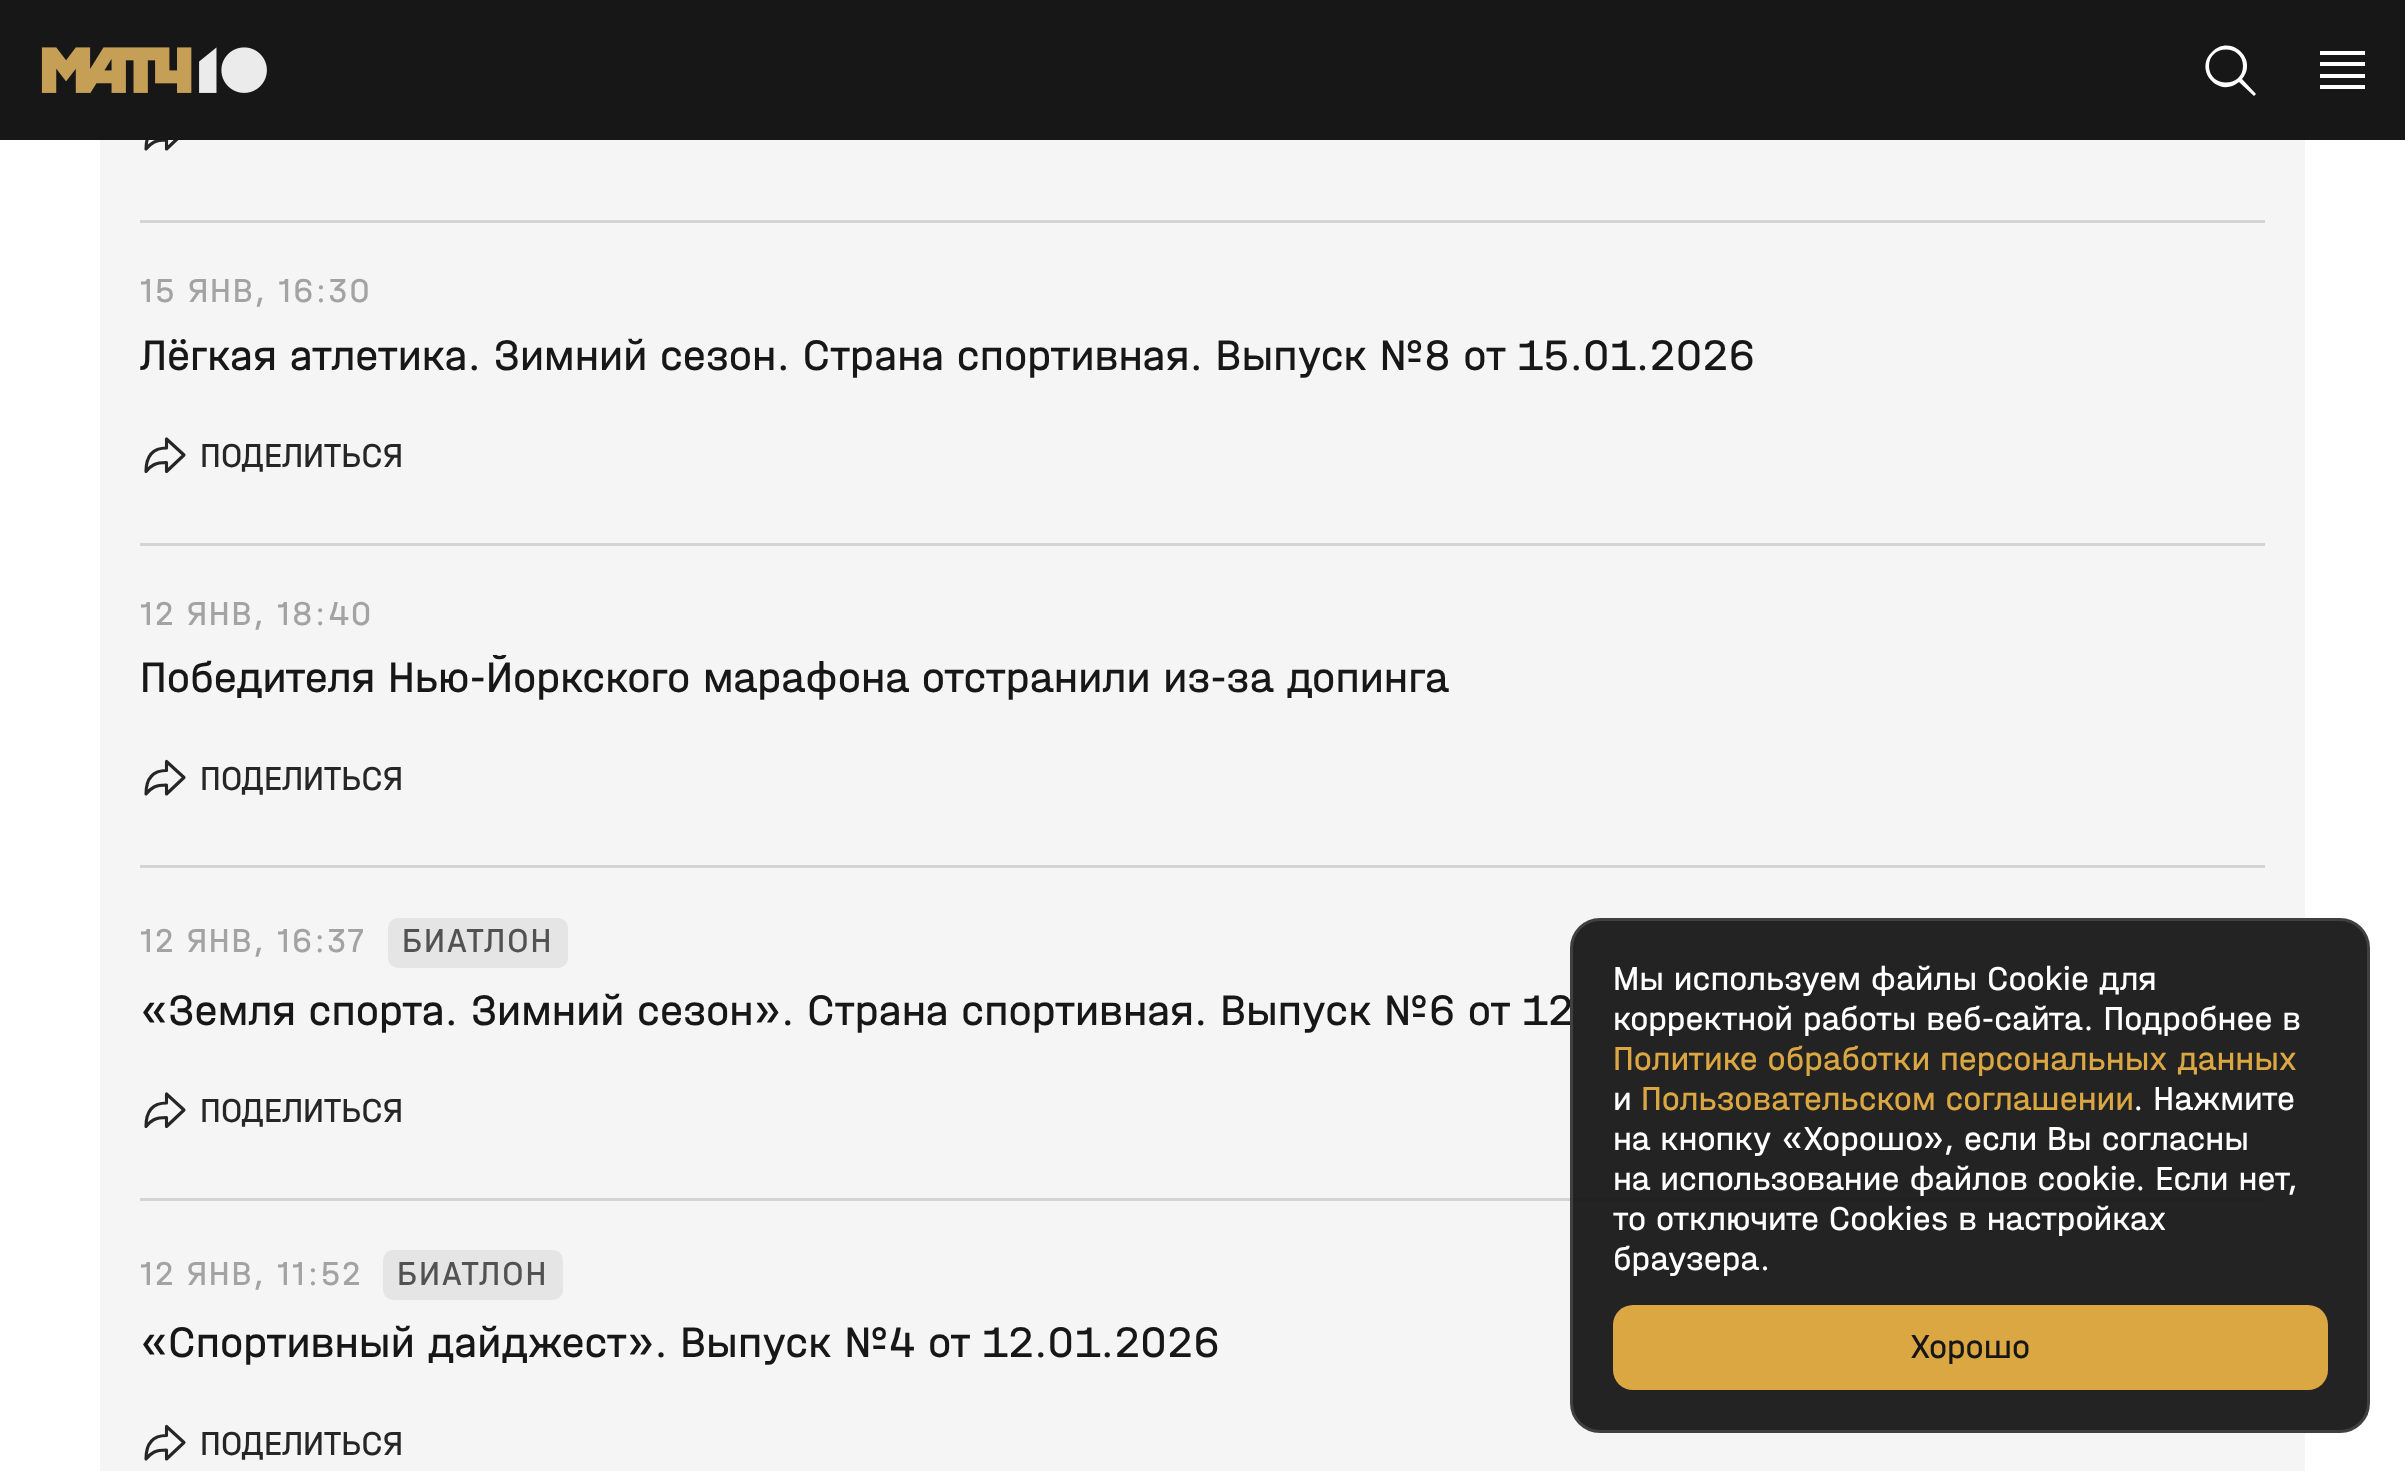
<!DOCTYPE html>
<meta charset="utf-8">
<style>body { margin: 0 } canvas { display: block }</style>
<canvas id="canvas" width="2405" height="1471"></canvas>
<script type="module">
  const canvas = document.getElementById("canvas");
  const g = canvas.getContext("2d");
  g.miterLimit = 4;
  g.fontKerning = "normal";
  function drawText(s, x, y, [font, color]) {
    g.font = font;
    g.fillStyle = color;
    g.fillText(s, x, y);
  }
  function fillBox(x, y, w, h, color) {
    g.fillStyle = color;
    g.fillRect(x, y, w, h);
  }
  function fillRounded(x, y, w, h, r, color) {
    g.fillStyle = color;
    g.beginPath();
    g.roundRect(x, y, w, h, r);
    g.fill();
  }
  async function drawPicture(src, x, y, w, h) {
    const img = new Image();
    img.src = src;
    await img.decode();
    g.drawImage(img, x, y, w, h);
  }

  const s1 = ["35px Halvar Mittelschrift", "#A3A3A3"];
  const s2 = ["45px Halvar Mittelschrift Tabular", "#171717"];
  const s3 = ["35px Halvar Mittelschrift", "#262626"];
  const s4 = ["45px Halvar Mittelschrift", "#171717"];
  const s5 = ["35px Halvar Mittelschrift", "#525252"];
  const s6 = ["35px Halvar Mittelschrift", "#FFFFFF"];
  const s7 = ["35px Halvar Mittelschrift", "#DBA742"];
  const s8 = ["35px Halvar Mittelschrift", "#171717"];

  fillBox(0, 0, 2405, 1471, "#FFFFFF");
  fillBox(100, 140, 2205, 1331, "#F5F5F5");
  g.beginPath();
  g.moveTo(184, 132.5);
  g.lineTo(166.5, 116.5);
  g.lineTo(166.5, 125.5);
  g.bezierCurveTo(150, 125.5, 146, 137.5, 146, 149);
  g.bezierCurveTo(151, 143, 155, 140, 166.5, 140);
  g.lineTo(166.5, 149);
  g.closePath();
  g.strokeStyle = "#262626";
  g.lineWidth = 3.1;
  g.lineJoin = "round";
  g.stroke();
  fillBox(0, 0, 2405, 140, "#171717");
  await drawPicture("pic1.png", 41, 47, 226, 46);
  g.fillStyle = "#FFFFFF";
  g.beginPath();
  g.moveTo(2256, 94);
  g.lineTo(2242, 79);
  g.bezierCurveTo(2259, 59, 2230, 33, 2212, 52);
  g.bezierCurveTo(2193, 70, 2219, 99, 2239, 82);
  g.lineTo(2254, 96);
  g.closePath();
  g.moveTo(2209, 66);
  g.bezierCurveTo(2209, 44, 2243, 44, 2243, 66);
  g.bezierCurveTo(2243, 88, 2209, 88, 2209, 66);
  g.closePath();
  g.fill("evenodd");
  g.beginPath();
  g.moveTo(2320, 85);
  g.lineTo(2365, 85);
  g.lineTo(2365, 89);
  g.lineTo(2320, 89);
  g.closePath();
  g.moveTo(2320, 74);
  g.lineTo(2365, 74);
  g.lineTo(2365, 78);
  g.lineTo(2320, 78);
  g.closePath();
  g.moveTo(2320, 62);
  g.lineTo(2365, 62);
  g.lineTo(2365, 66);
  g.lineTo(2320, 66);
  g.closePath();
  g.moveTo(2320, 51);
  g.lineTo(2365, 51);
  g.lineTo(2365, 55);
  g.lineTo(2320, 55);
  g.closePath();
  g.fill("evenodd");
  fillBox(140, 220, 2125, 3, "#D4D4D4");
  g.letterSpacing = "1.75px";
  drawText("15 ЯНВ, 16:30", 140, 302, s1);
  g.letterSpacing = "0px";
  drawText("Лёгкая атлетика. Зимний сезон. Страна спортивная. Выпуск №8 от 15.01.2026", 140, 370, s2);
  g.beginPath();
  g.moveTo(184, 455);
  g.lineTo(166.5, 439);
  g.lineTo(166.5, 448);
  g.bezierCurveTo(150, 448, 146, 460, 146, 471.5);
  g.bezierCurveTo(151, 465.5, 155, 462.5, 166.5, 462.5);
  g.lineTo(166.5, 471.5);
  g.closePath();
  g.stroke();
  drawText("ПОДЕЛИТЬСЯ", 200, 467, s3);
  fillBox(140, 543, 2125, 3, "#D4D4D4");
  g.letterSpacing = "1.75px";
  drawText("12 ЯНВ, 18:40", 140, 625, s1);
  g.save();
  g.beginPath();
  g.rect(140, 655, 2125, 50);
  g.clip();
  g.letterSpacing = "0px";
  drawText("Победителя Нью‑Йоркского марафона отстранили из‑за допинга", 140, 692, s4);
  g.restore();
  g.beginPath();
  g.moveTo(184, 777.5);
  g.lineTo(166.5, 761.5);
  g.lineTo(166.5, 770.5);
  g.bezierCurveTo(150, 770.5, 146, 782.5, 146, 794);
  g.bezierCurveTo(151, 788, 155, 785, 166.5, 785);
  g.lineTo(166.5, 794);
  g.closePath();
  g.stroke();
  g.letterSpacing = "0px";
  drawText("ПОДЕЛИТЬСЯ", 200, 790, s3);
  fillBox(140, 865, 2125, 3, "#D4D4D4");
  g.letterSpacing = "1.75px";
  drawText("12 ЯНВ, 16:37", 140, 952, s1);
  fillRounded(388, 918, 180, 50, 10, "#E5E5E5");
  drawText("БИАТЛОН", 402, 952, s5);
  g.letterSpacing = "0px";
  drawText("«Земля спорта. Зимний сезон». Страна спортивная. Выпуск №6 от 12", 140, 1025, s2);
  g.beginPath();
  g.moveTo(184, 1110);
  g.lineTo(166.5, 1094);
  g.lineTo(166.5, 1103);
  g.bezierCurveTo(150, 1103, 146, 1115, 146, 1126.5);
  g.bezierCurveTo(151, 1120.5, 155, 1117.5, 166.5, 1117.5);
  g.lineTo(166.5, 1126.5);
  g.closePath();
  g.stroke();
  drawText("ПОДЕЛИТЬСЯ", 200, 1122, s3);
  fillBox(140, 1198, 2125, 3, "#D4D4D4");
  g.letterSpacing = "1.75px";
  drawText("12 ЯНВ, 11:52", 140, 1285, s1);
  fillRounded(383, 1250, 180, 50, 10, "#E5E5E5");
  drawText("БИАТЛОН", 397, 1285, s5);
  g.letterSpacing = "0px";
  drawText("«Спортивный дайджест». Выпуск №4 от 12.01.2026", 140, 1357, s2);
  g.beginPath();
  g.moveTo(184, 1442.5);
  g.lineTo(166.5, 1426.5);
  g.lineTo(166.5, 1435.5);
  g.bezierCurveTo(150, 1435.5, 146, 1447.5, 146, 1459);
  g.bezierCurveTo(151, 1453, 155, 1450, 166.5, 1450);
  g.lineTo(166.5, 1459);
  g.closePath();
  g.stroke();
  drawText("ПОДЕЛИТЬСЯ", 200, 1455, s3);
  g.fillStyle = "rgba(23, 23, 23, 0.95)";
  g.beginPath();
  g.roundRect(1571.5, 919.5, 797, 512, 28.5);
  g.fill();
  g.strokeStyle = "#404040";
  g.lineWidth = 3;
  g.lineJoin = "miter";
  g.stroke();
  drawText("Мы используем файлы Сookie для", 1613, 990, s6);
  drawText("корректной работы веб-сайта. Подробнее в", 1613, 1030, s6);
  drawText("Политике обработки персональных данных", 1613, 1070, s7);
  drawText("и", 1613, 1110, s6);
  drawText("Пользовательском соглашении", 1641, 1110, s7);
  drawText(". Нажмите", 2133, 1110, s6);
  drawText("на кнопку «Хорошо», если Вы согласны", 1613, 1150, s6);
  drawText("на использование файлов cookie. Если нет,", 1613, 1190, s6);
  drawText("то отключите Cookies в настройках", 1613, 1230, s6);
  drawText("браузера.", 1613, 1270, s6);
  fillRounded(1613, 1305, 715, 85, 20, "#DBA742");
  drawText("Хорошо", 1910, 1358, s8);
</script>
